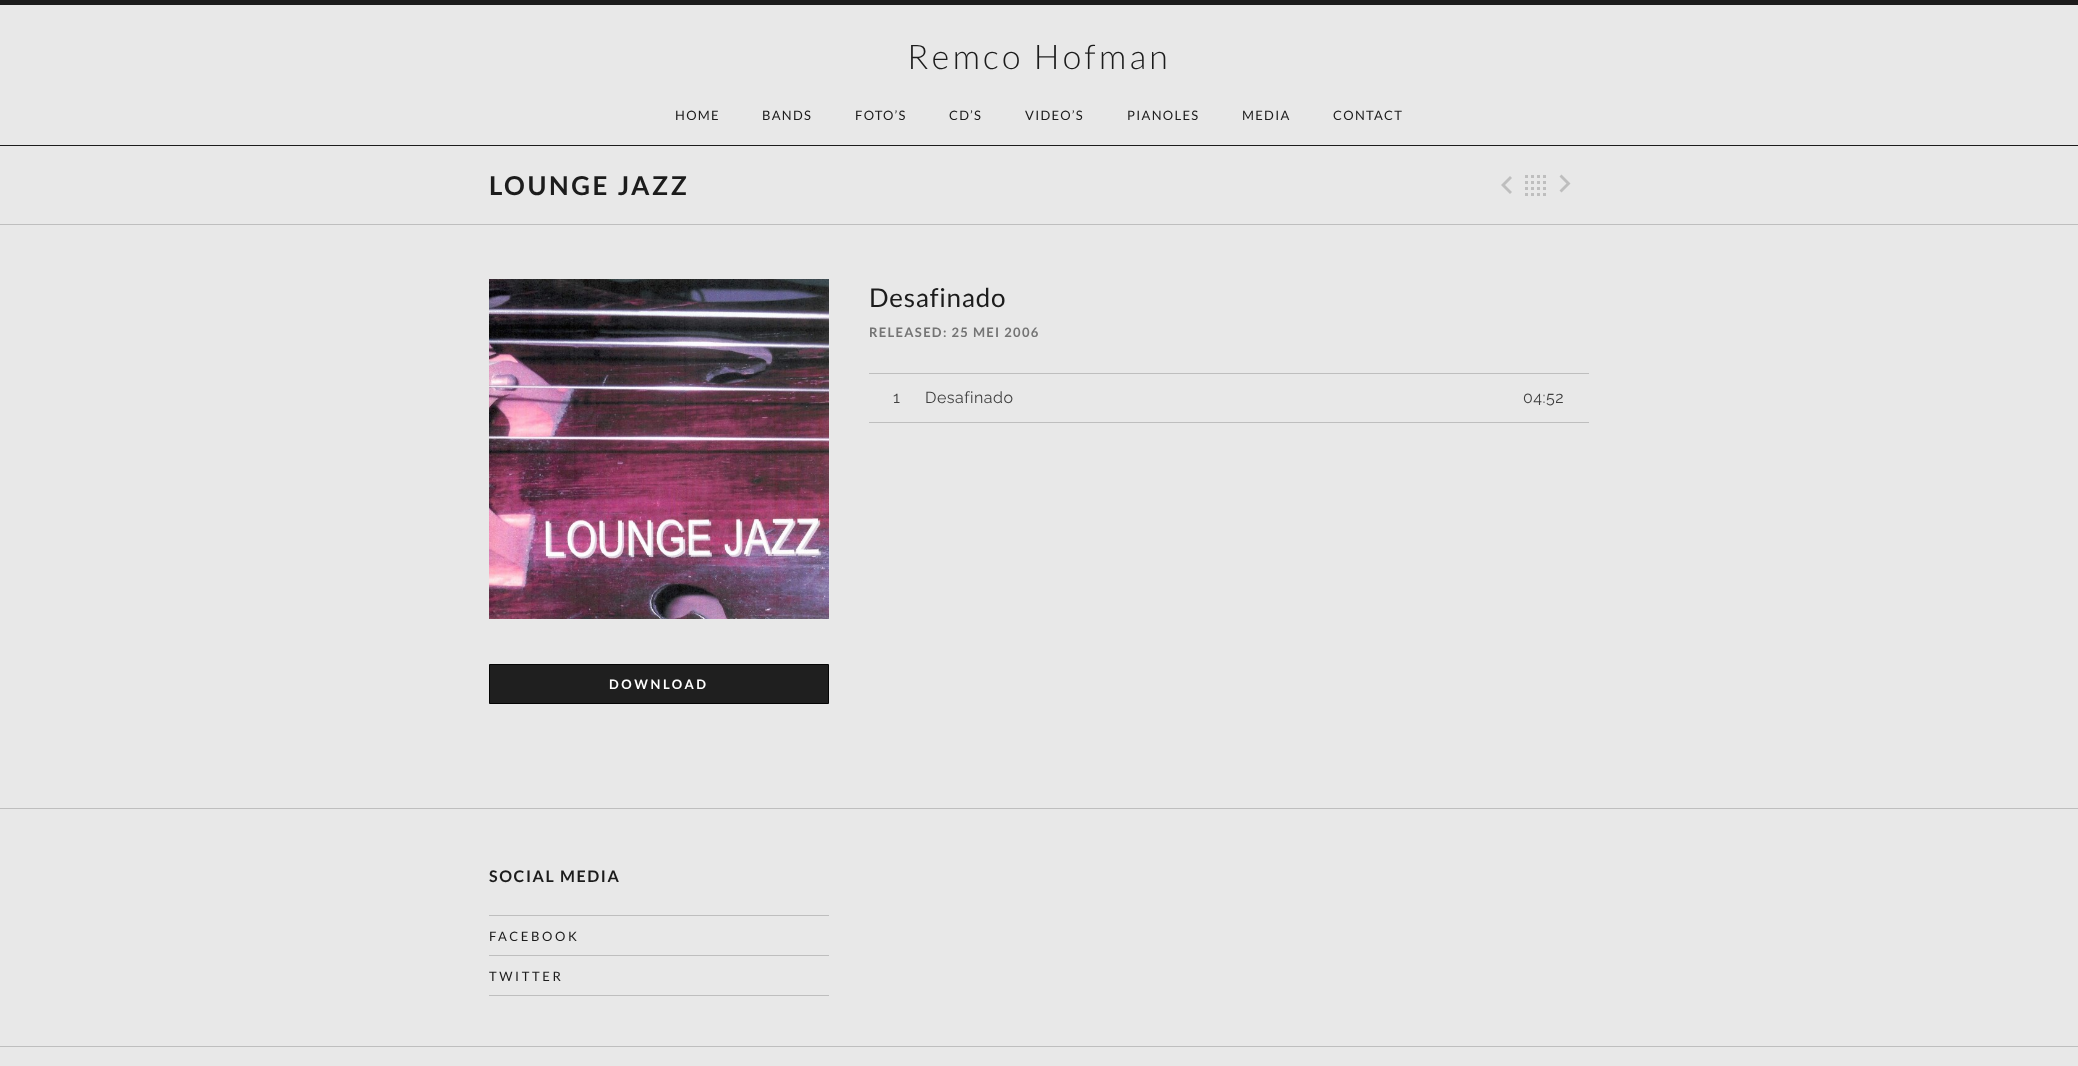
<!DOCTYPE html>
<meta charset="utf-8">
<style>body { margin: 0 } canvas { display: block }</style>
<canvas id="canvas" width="2078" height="1066"></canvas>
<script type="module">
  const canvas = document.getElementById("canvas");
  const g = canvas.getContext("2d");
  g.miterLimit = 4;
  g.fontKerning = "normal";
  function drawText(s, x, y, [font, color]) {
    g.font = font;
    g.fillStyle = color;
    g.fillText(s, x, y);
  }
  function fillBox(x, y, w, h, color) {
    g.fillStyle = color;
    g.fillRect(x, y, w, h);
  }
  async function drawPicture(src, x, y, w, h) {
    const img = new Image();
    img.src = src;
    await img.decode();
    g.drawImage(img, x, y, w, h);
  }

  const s1 = ["300 34px Lato", "#1C1C1C"];
  const s2 = ["13px Lato", "#1C1C1C"];
  const s3 = ["bold 26px Lato", "#1C1C1C"];
  const s4 = ["26px Lato", "#1C1C1C"];
  const s5 = ["bold 13px Lato", "#747474"];
  const s6 = ["16px Raleway", "#3F3F3F"];
  const s7 = ["bold 13px Lato", "#FFFFFF"];
  const s8 = ["bold 16px Lato", "#1C1C1C"];

  fillBox(0, 0, 2078, 1066, "#E8E8E8");
  fillBox(0, 0, 2078, 5, "#1C1C1C");
  fillBox(0, 145, 2078, 1, "#1C1C1C");
  g.letterSpacing = "3.4px";
  drawText("Remco Hofman", 907, 69, s1);
  g.letterSpacing = "1.3px";
  drawText("HOME", 675, 120, s2);
  drawText("BANDS", 762, 120, s2);
  drawText("FOTO’S", 855, 120, s2);
  drawText("CD’S", 949, 120, s2);
  drawText("VIDEO’S", 1025, 120, s2);
  drawText("PIANOLES", 1127, 120, s2);
  drawText("MEDIA", 1242, 120, s2);
  drawText("CONTACT", 1333, 120, s2);
  fillBox(0, 224, 2078, 1, "#BEBEBE");
  g.letterSpacing = "2.6px";
  drawText("LOUNGE JAZZ", 489, 195, s3);
  g.fillStyle = "#BEBEBE";
  g.beginPath();
  g.moveTo(1512, 178);
  g.lineTo(1505, 185);
  g.lineTo(1512, 192);
  g.lineTo(1510, 194);
  g.lineTo(1501, 185);
  g.lineTo(1510, 176);
  g.closePath();
  g.fill();
  await drawPicture("pic1.png", 1525, 175, 21, 21);
  g.beginPath();
  g.moveTo(1559.5, 190.5);
  g.lineTo(1566.5, 183.5);
  g.lineTo(1559.5, 176.5);
  g.lineTo(1561.5, 174.5);
  g.lineTo(1570.5, 183.5);
  g.lineTo(1561.5, 192.5);
  g.closePath();
  g.fill();
  g.letterSpacing = "0.75px";
  drawText("Desafinado", 869, 307, s4);
  g.letterSpacing = "1.3px";
  drawText("RELEASED: 25 MEI 2006", 869, 337, s5);
  fillBox(869, 373, 720, 1, "#BEBEBE");
  fillBox(869, 422, 720, 1, "#BEBEBE");
  g.letterSpacing = "0.5px";
  drawText("1", 893, 403, s6);
  drawText("Desafinado", 925, 403, s6);
  drawText("04:52", 1523, 403, s6);
  await drawPicture("pic2.png", 489, 279, 340, 340);
  g.fillStyle = "#1F1F1F";
  g.beginPath();
  g.rect(489.5, 664.5, 339, 39);
  g.fill();
  g.strokeStyle = "#040404";
  g.stroke();
  g.letterSpacing = "2.6px";
  drawText("DOWNLOAD", 609, 689, s7);
  fillBox(0, 808, 2078, 1, "#BEBEBE");
  g.letterSpacing = "1.6px";
  drawText("SOCIAL MEDIA", 489, 882, s8);
  fillBox(489, 995, 340, 1, "#BEBEBE");
  fillBox(489, 915, 340, 1, "#BEBEBE");
  g.letterSpacing = "2.6px";
  drawText("FACEBOOK", 489, 941, s2);
  fillBox(489, 955, 340, 1, "#BEBEBE");
  drawText("TWITTER", 489, 981, s2);
  fillBox(0, 1046, 2078, 1, "#BEBEBE");
</script>
